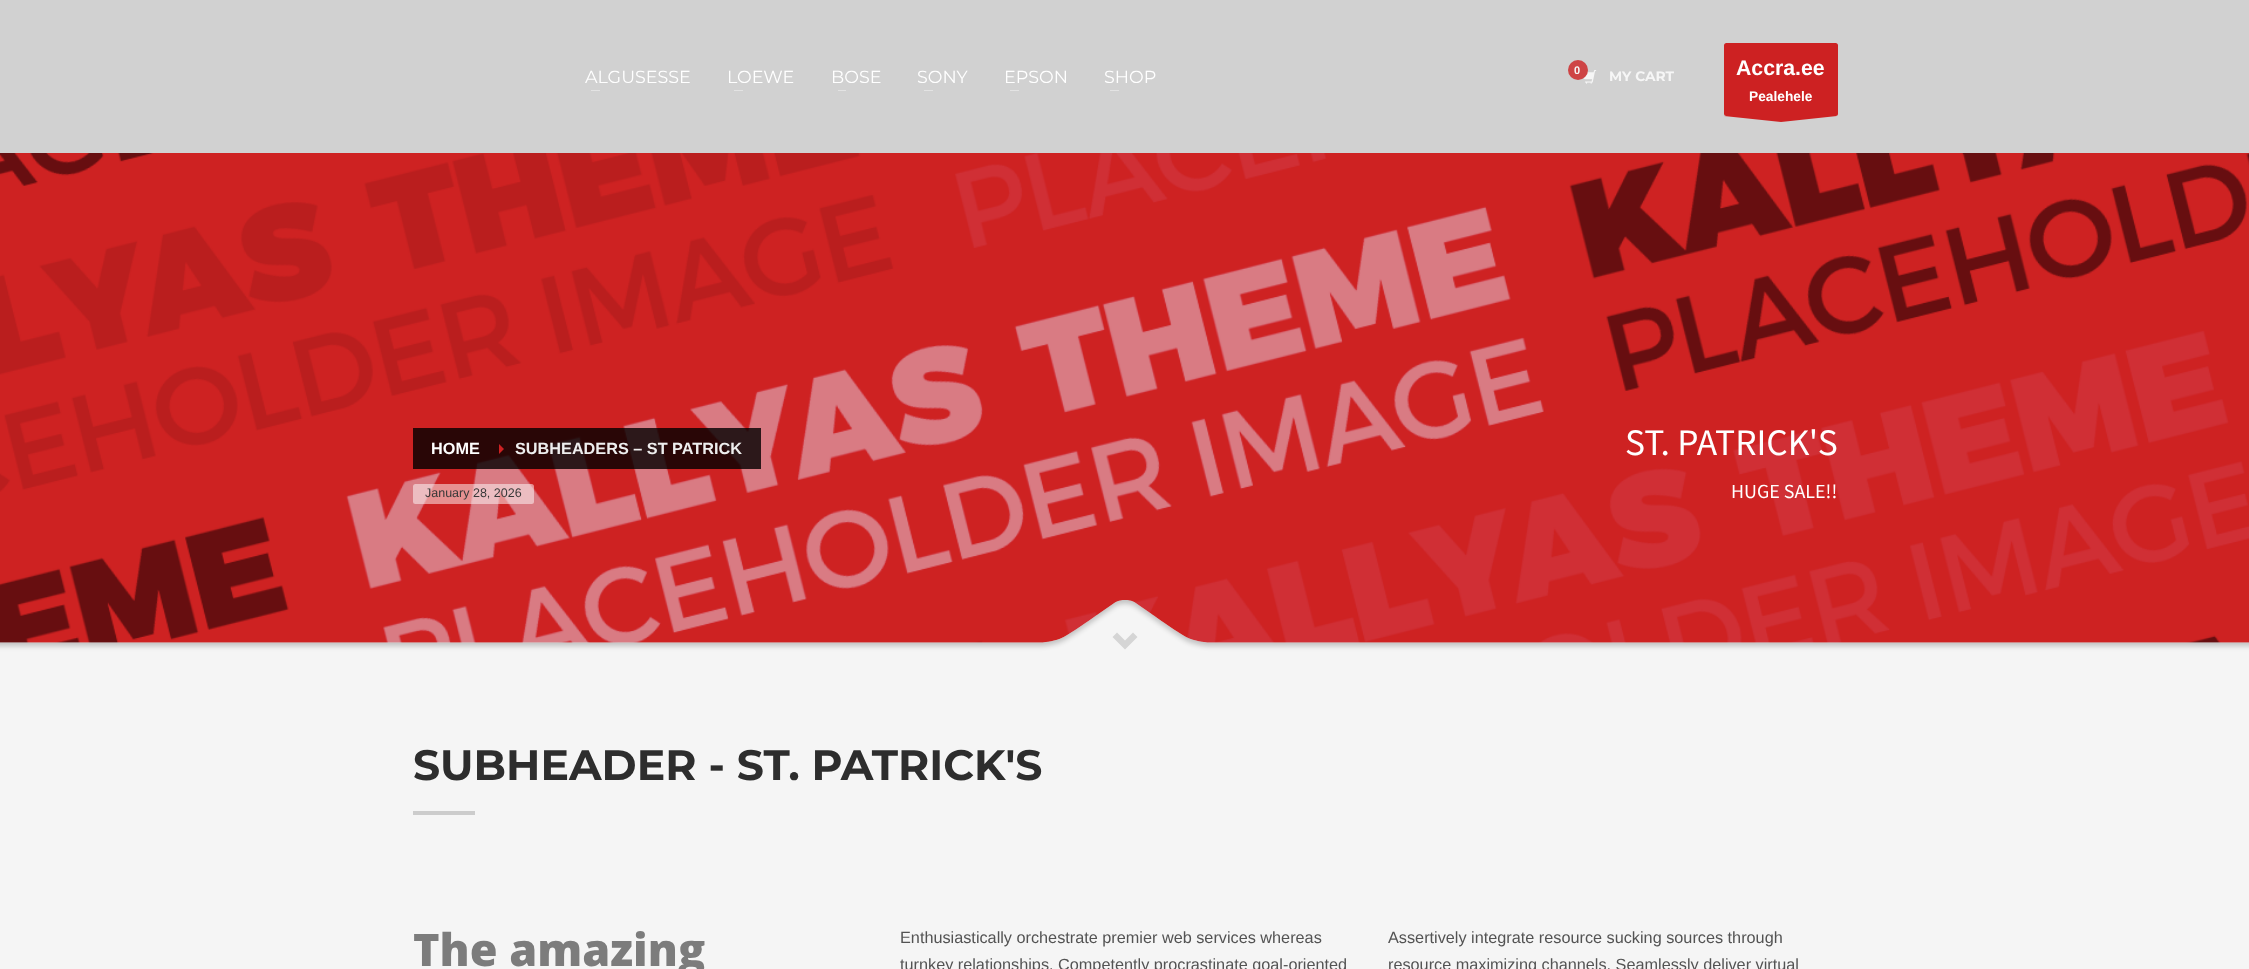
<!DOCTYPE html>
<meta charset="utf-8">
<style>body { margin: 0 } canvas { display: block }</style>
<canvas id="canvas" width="2249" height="969"></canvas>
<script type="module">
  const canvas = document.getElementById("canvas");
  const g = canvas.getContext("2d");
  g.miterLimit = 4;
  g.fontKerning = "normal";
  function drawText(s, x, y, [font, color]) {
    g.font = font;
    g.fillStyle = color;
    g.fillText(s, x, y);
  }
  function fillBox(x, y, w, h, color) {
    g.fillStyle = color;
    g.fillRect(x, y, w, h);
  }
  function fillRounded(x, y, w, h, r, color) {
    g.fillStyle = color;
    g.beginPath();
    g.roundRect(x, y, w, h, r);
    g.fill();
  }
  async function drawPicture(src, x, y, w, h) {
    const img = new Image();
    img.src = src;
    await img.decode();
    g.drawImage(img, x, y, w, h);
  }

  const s1 = ["17.5px Montserrat", "#FFFFFF"];
  const s2 = ["bold 11px Liberation Sans", "#F6F6F6"];
  const s3 = ["bold 13.75px Montserrat", "#F6F6F6"];
  const s4 = ["bold 21.25px Liberation Sans", "#FFFFFF"];
  const s5 = ["bold 13.75px Liberation Sans", "#FFFFFF"];
  const s6 = ["bold 16.25px Liberation Sans", "#FFFFFF"];
  const s7 = ["bold 16.25px Liberation Sans", "#EEEEEE"];
  const s8 = ["12.5px Liberation Sans", "#383838"];
  const s9 = ["37.5px 'Source Sans 3'", "#FFFFFF"];
  const s10 = ["20px 'Source Sans 3'", "#FFFFFF"];
  const s11 = ["bold 42.5px Montserrat", "#2D2D2D"];
  const s12 = ["800 45px Open Sans", "#7C7C7C"];
  const s13 = ["16.25px Liberation Sans", "#535353"];

  fillBox(0, 0, 2249, 969, "#F5F5F5");
  fillBox(0, 0, 2249, 153, "#D1D1D1");
  drawText("ALGUSESSE", 585, 83, s1);
  fillBox(591, 90, 9, 1, "#E3E3E3");
  drawText("LOEWE", 727, 83, s1);
  fillBox(734, 90, 9, 1, "#E3E3E3");
  drawText("BOSE", 831, 83, s1);
  fillBox(838, 90, 8, 1, "#E3E3E3");
  drawText("SONY", 917, 83, s1);
  fillBox(924, 90, 9, 1, "#E3E3E3");
  drawText("EPSON", 1004, 83, s1);
  fillBox(1010, 90, 9, 1, "#E3E3E3");
  drawText("SHOP", 1104, 83, s1);
  fillBox(1110, 90, 9, 1, "#E3E3E3");
  await drawPicture("pic1.png", 1583, 70, 14, 14);
  g.fillStyle = "#CE4445";
  g.beginPath();
  g.arc(1578, 70, 10, 0, Math.PI * 2);
  g.fill();
  drawText("0", 1574, 74, s2);
  drawText("MY CART", 1609, 81, s3);
  fillRounded(1724, 43, 114, 73, 2.5, "#CD2122");
  drawText("Accra.ee", 1736, 75, s4);
  drawText("Pealehele", 1749, 101, s5);
  g.fillStyle = "#CD2122";
  g.beginPath();
  g.moveTo(1837, 116);
  g.lineTo(1781, 122);
  g.lineTo(1724, 116);
  g.closePath();
  g.fill("evenodd");
  await drawPicture("pic2.png", 0, 153, 2249, 490);
  fillBox(413, 428, 73, 41, "rgba(0, 0, 0, 0.8)");
  drawText("HOME", 431, 454, s6);
  fillBox(486, 428, 275, 41, "rgba(0, 0, 0, 0.8)");
  g.fillStyle = "#CD2122";
  g.beginPath();
  g.moveTo(499, 454);
  g.lineTo(499, 444);
  g.lineTo(504, 449);
  g.closePath();
  g.fill();
  drawText("SUBHEADERS – ST PATRICK", 515, 454, s7);
  fillRounded(413, 484, 121, 20, 2.5, "rgba(255, 255, 255, 0.5)");
  drawText("January 28, 2026", 425, 497, s8);
  drawText("ST. PATRICK'S", 1625, 455, s9);
  drawText("HUGE SALE!!", 1731, 498, s10);
  await drawPicture("pic3.png", 0, 600, 2249, 53);
  g.fillStyle = "#D5D5D5";
  g.beginPath();
  g.moveTo(1137.5, 637);
  g.lineTo(1125, 649.5);
  g.lineTo(1112.5, 637);
  g.lineTo(1117, 632.5);
  g.lineTo(1125, 640.5);
  g.lineTo(1133, 632.5);
  g.closePath();
  g.fill();
  drawText("SUBHEADER - ST. PATRICK'S", 413, 780, s11);
  fillBox(413, 811, 62, 4, "#CCCCCC");
  drawText("The amazing", 413, 966, s12);
  drawText("Enthusiastically orchestrate premier web services whereas", 900, 943, s13);
  drawText("turnkey relationships. Competently procrastinate goal-oriented", 900, 970, s13);
  drawText("Assertively integrate resource sucking sources through", 1388, 943, s13);
  drawText("resource maximizing channels. Seamlessly deliver virtual", 1388, 970, s13);
</script>
